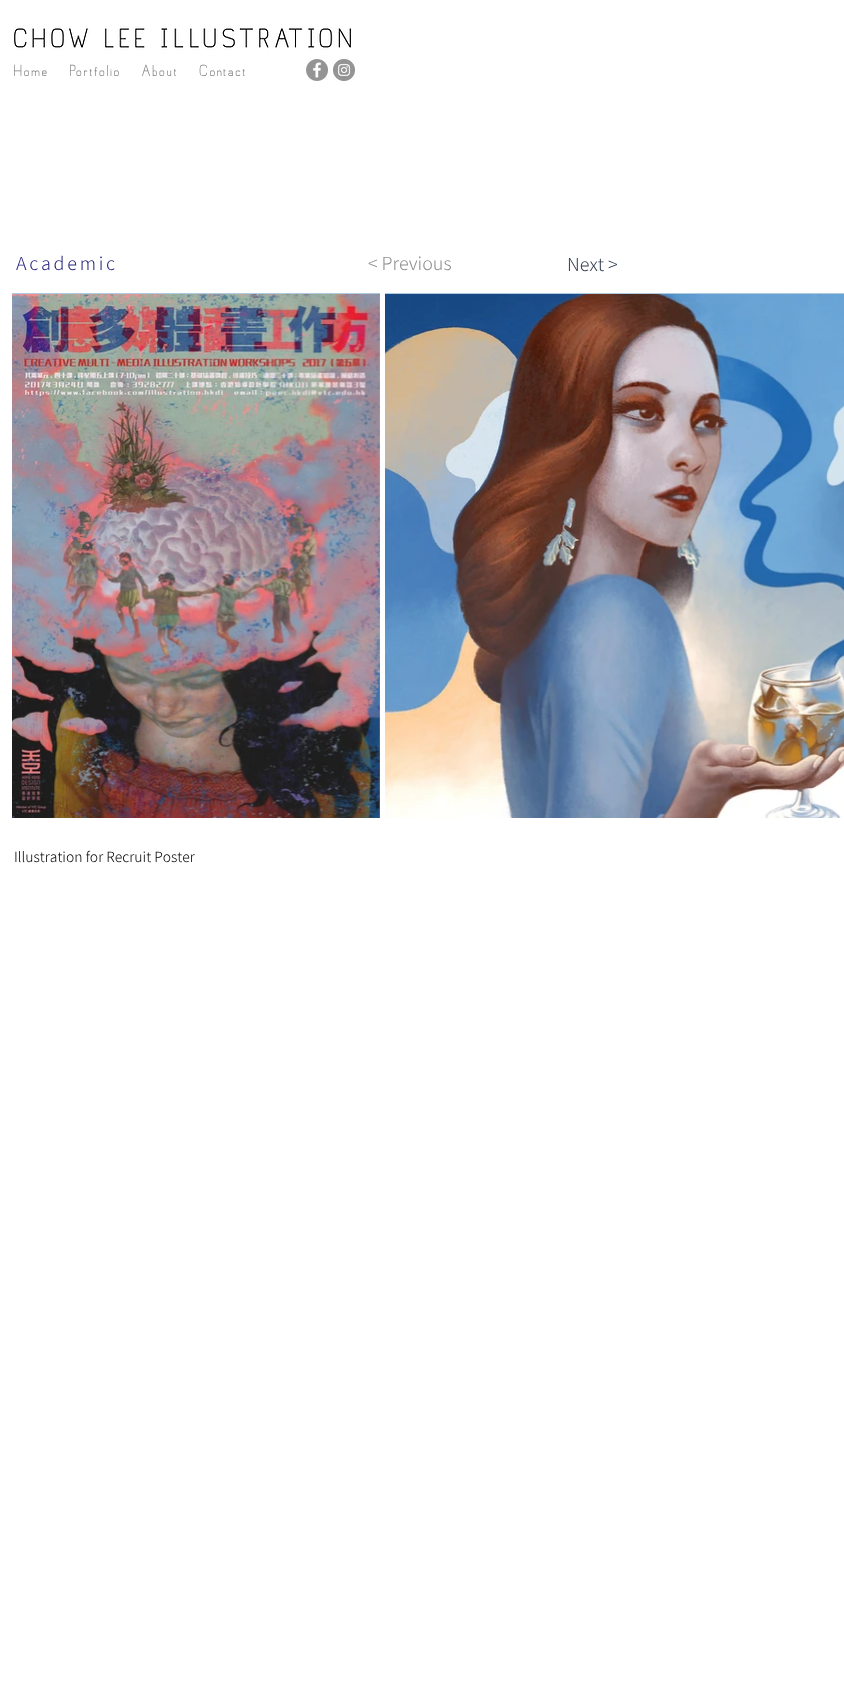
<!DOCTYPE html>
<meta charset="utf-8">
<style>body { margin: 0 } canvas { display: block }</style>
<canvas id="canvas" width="844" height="1685"></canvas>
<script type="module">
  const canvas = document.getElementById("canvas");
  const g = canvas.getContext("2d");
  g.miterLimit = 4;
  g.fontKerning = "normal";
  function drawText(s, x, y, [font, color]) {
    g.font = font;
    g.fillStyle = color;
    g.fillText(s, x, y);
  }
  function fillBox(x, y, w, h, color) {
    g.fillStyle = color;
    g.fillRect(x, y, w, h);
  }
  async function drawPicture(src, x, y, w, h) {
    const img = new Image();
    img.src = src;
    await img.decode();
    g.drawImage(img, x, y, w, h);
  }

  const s1 = ["16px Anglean", "#828282"];
  const s2 = ["300 18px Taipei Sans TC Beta", "#221F7B"];
  const s3 = ["300 18px Taipei Sans TC Beta", "#8F8F8F"];
  const s4 = ["300 18px Taipei Sans TC Beta", "#313E4F"];
  const s5 = ["300 14px Taipei Sans TC Beta", "#000000"];

  fillBox(0, 0, 844, 1685, "#FFFFFF");
  await drawPicture("pic1.png", 14, 26, 337, 24);
  g.letterSpacing = "0.75px";
  drawText("Home", 14, 76, s1);
  drawText("Portfolio", 70, 76, s1);
  drawText("About", 142, 76, s1);
  drawText("Contact", 200, 76, s1);
  await drawPicture("pic2.png", 306, 59, 22, 22);
  await drawPicture("pic3.png", 333, 59, 22, 22);
  g.letterSpacing = "2.75px";
  drawText("Academic", 16, 270, s2);
  g.letterSpacing = "0px";
  drawText("< Previous", 368, 270, s3);
  drawText("Next >", 567, 271, s4);
  fillBox(12, 293, 368, 525, "#AFCBE0");
  await drawPicture("pic4.png", 12, 294, 368, 524);
  fillBox(385, 293, 459, 1, "#AFCBE0");
  await drawPicture("pic5.png", 385, 294, 459, 524);
  drawText("Illustration for Recruit Poster", 14, 862, s5);
</script>
